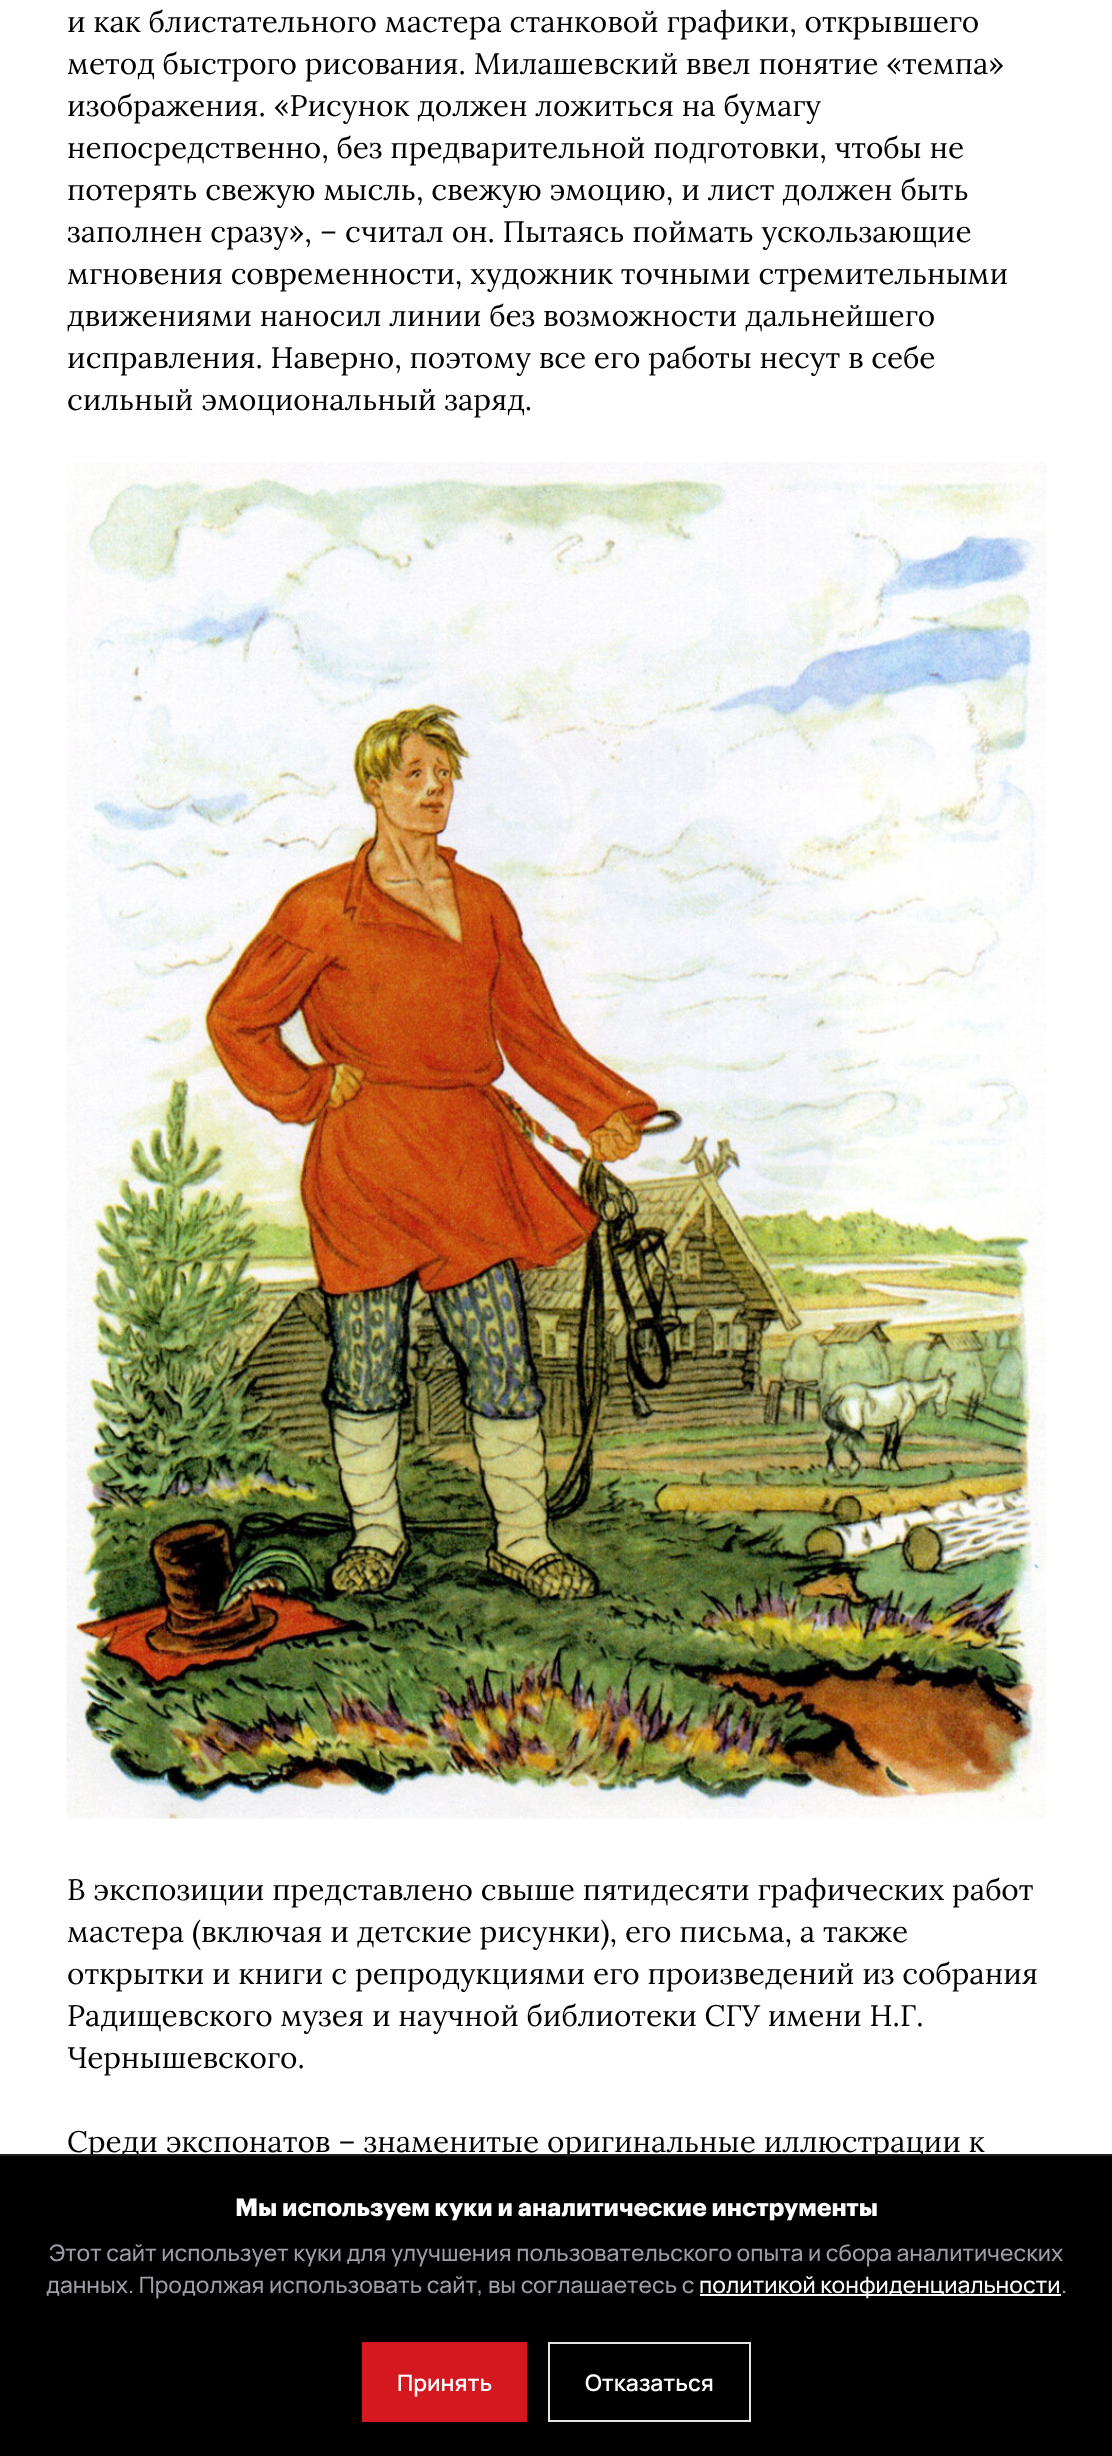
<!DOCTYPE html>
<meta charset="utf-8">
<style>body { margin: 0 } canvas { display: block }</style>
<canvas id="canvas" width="1112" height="2456"></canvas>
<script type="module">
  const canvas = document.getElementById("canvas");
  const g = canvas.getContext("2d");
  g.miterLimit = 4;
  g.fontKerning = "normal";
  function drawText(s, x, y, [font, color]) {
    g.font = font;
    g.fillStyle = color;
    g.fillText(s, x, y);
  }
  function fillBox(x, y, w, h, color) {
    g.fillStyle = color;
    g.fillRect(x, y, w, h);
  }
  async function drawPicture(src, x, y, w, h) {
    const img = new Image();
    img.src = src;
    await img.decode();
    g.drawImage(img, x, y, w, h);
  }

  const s1 = ["29.75px Lora", "#000000"];
  const s2 = ["bold 24.5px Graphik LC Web", "#FFFFFF"];
  const s3 = ["500 22.75px Manrope", "#9D9DA4"];
  const s4 = ["500 22.75px Manrope", "#FFFFFF"];
  const s5 = ["600 22.75px Manrope", "#FFFFFF"];

  fillBox(0, 0, 1112, 2456, "#FFFFFF");
  drawText("и как блистательного мастера станковой графики, открывшего", 67, 32, s1);
  drawText("метод быстрого рисования. Милашевский ввел понятие «темпа»", 67, 74, s1);
  drawText("изображения. «Рисунок должен ложиться на бумагу", 67, 116, s1);
  drawText("непосредственно, без предварительной подготовки, чтобы не", 67, 158, s1);
  drawText("потерять свежую мысль, свежую эмоцию, и лист должен быть", 67, 200, s1);
  drawText("заполнен сразу», – считал он. Пытаясь поймать ускользающие", 67, 242, s1);
  drawText("мгновения современности, художник точными стремительными", 67, 284, s1);
  drawText("движениями наносил линии без возможности дальнейшего", 67, 326, s1);
  drawText("исправления. Наверно, поэтому все его работы несут в себе", 67, 368, s1);
  drawText("сильный эмоциональный заряд.", 67, 410, s1);
  await drawPicture("pic1.png", 66, 462, 981, 1357);
  drawText("В экспозиции представлено свыше пятидесяти графических работ", 67, 1900, s1);
  drawText("мастера (включая и детские рисунки), его письма, а также", 67, 1942, s1);
  drawText("открытки и книги с репродукциями его произведений из собрания", 67, 1984, s1);
  drawText("Радищевского музея и научной библиотеки СГУ имени Н.Г.", 67, 2026, s1);
  drawText("Чернышевского.", 67, 2068, s1);
  drawText("Среди экспонатов – знаменитые оригинальные иллюстрации к", 67, 2152, s1);
  fillBox(0, 2156, 1112, 300, "#000000");
  fillBox(0, 2154, 1112, 2, "#1F1F1F");
  drawText("Мы используем куки и аналитические инструменты", 235, 2216, s2);
  drawText("Этот сайт использует куки для улучшения пользовательского опыта и сбора аналитических", 49, 2261, s3);
  drawText("данных. Продолжая использовать сайт, вы соглашаетесь с", 46, 2293, s3);
  fillBox(700, 2294, 361, 2, "#FFFFFF");
  drawText("политикой конфиденциальности", 699, 2293, s4);
  drawText(".", 1061, 2293, s3);
  fillBox(362, 2342, 165, 80, "#D5181F");
  drawText("Принять", 397, 2391, s5);
  g.strokeStyle = "#E4E4E4";
  g.lineWidth = 2;
  g.strokeRect(549, 2343, 201, 78);
  drawText("Отказаться", 585, 2391, s5);
</script>
